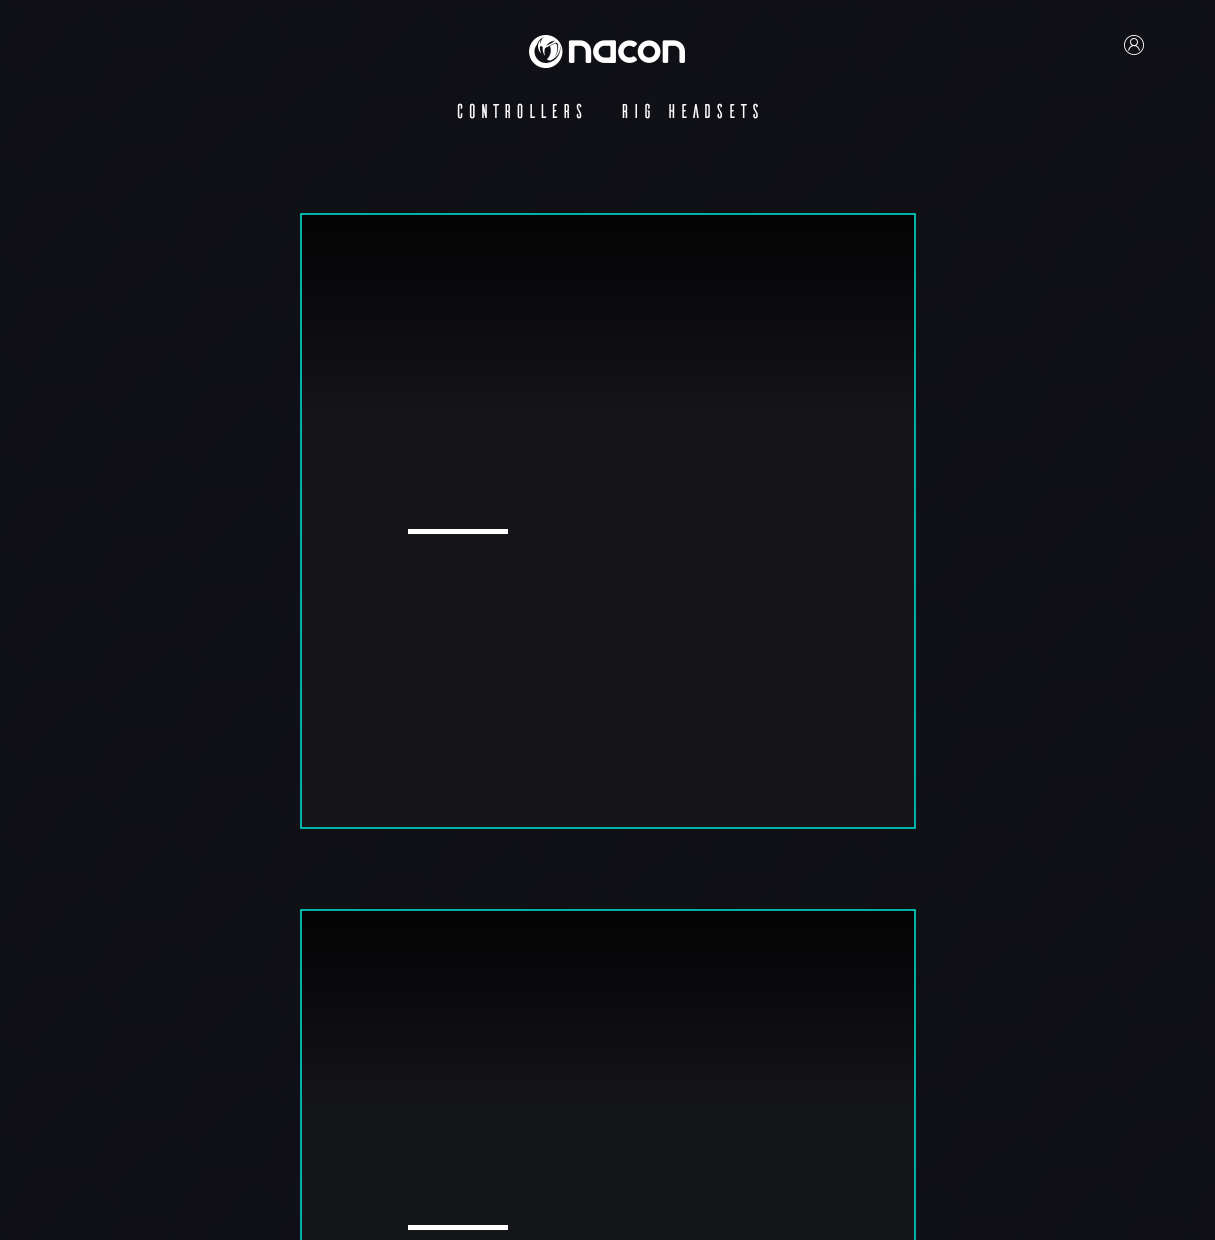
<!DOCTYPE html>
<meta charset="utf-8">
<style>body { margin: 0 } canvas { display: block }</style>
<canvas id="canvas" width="1215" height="1240"></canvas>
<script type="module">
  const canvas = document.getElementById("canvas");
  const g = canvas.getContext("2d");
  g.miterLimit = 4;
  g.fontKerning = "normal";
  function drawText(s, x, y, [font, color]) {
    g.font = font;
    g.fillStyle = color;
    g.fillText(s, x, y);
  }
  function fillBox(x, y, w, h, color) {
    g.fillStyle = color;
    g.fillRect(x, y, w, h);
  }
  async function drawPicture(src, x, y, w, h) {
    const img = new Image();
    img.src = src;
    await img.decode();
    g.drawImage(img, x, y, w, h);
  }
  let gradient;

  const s1 = ["20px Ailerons", "#FFFFFF"];

  fillBox(0, 0, 1215, 1240, "#000000");
  await drawPicture("pic1.png", 0, 0, 1215, 1240);
  await drawPicture("pic2.png", 1124, 35, 20, 20);
  await drawPicture("pic3.png", 529, 35, 156, 33);
  g.letterSpacing = "0.2px";
  drawText("CONTROLLERS", 454, 118, s1);
  drawText("RIG HEADSETS", 619, 118, s1);
  gradient = g.createLinearGradient(608, 215, 608, 827);
  gradient.addColorStop(0, "#030304");
  gradient.addColorStop(0.34, "#15151A");
  g.fillStyle = gradient;
  g.fillRect(302, 215, 612, 612);
  g.strokeStyle = "#00B2A9";
  g.lineWidth = 2;
  g.strokeRect(301, 214, 614, 614);
  fillBox(408, 529, 100, 5, "#FFFFFF");
  gradient = g.createLinearGradient(608, 911, 608, 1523);
  gradient.addColorStop(0, "#030304");
  gradient.addColorStop(0.34, "#15161A");
  g.fillStyle = gradient;
  g.fillRect(302, 911, 612, 329);
  g.strokeRect(301, 910, 614, 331);
  fillBox(408, 1225, 100, 5, "#FFFFFF");
</script>
